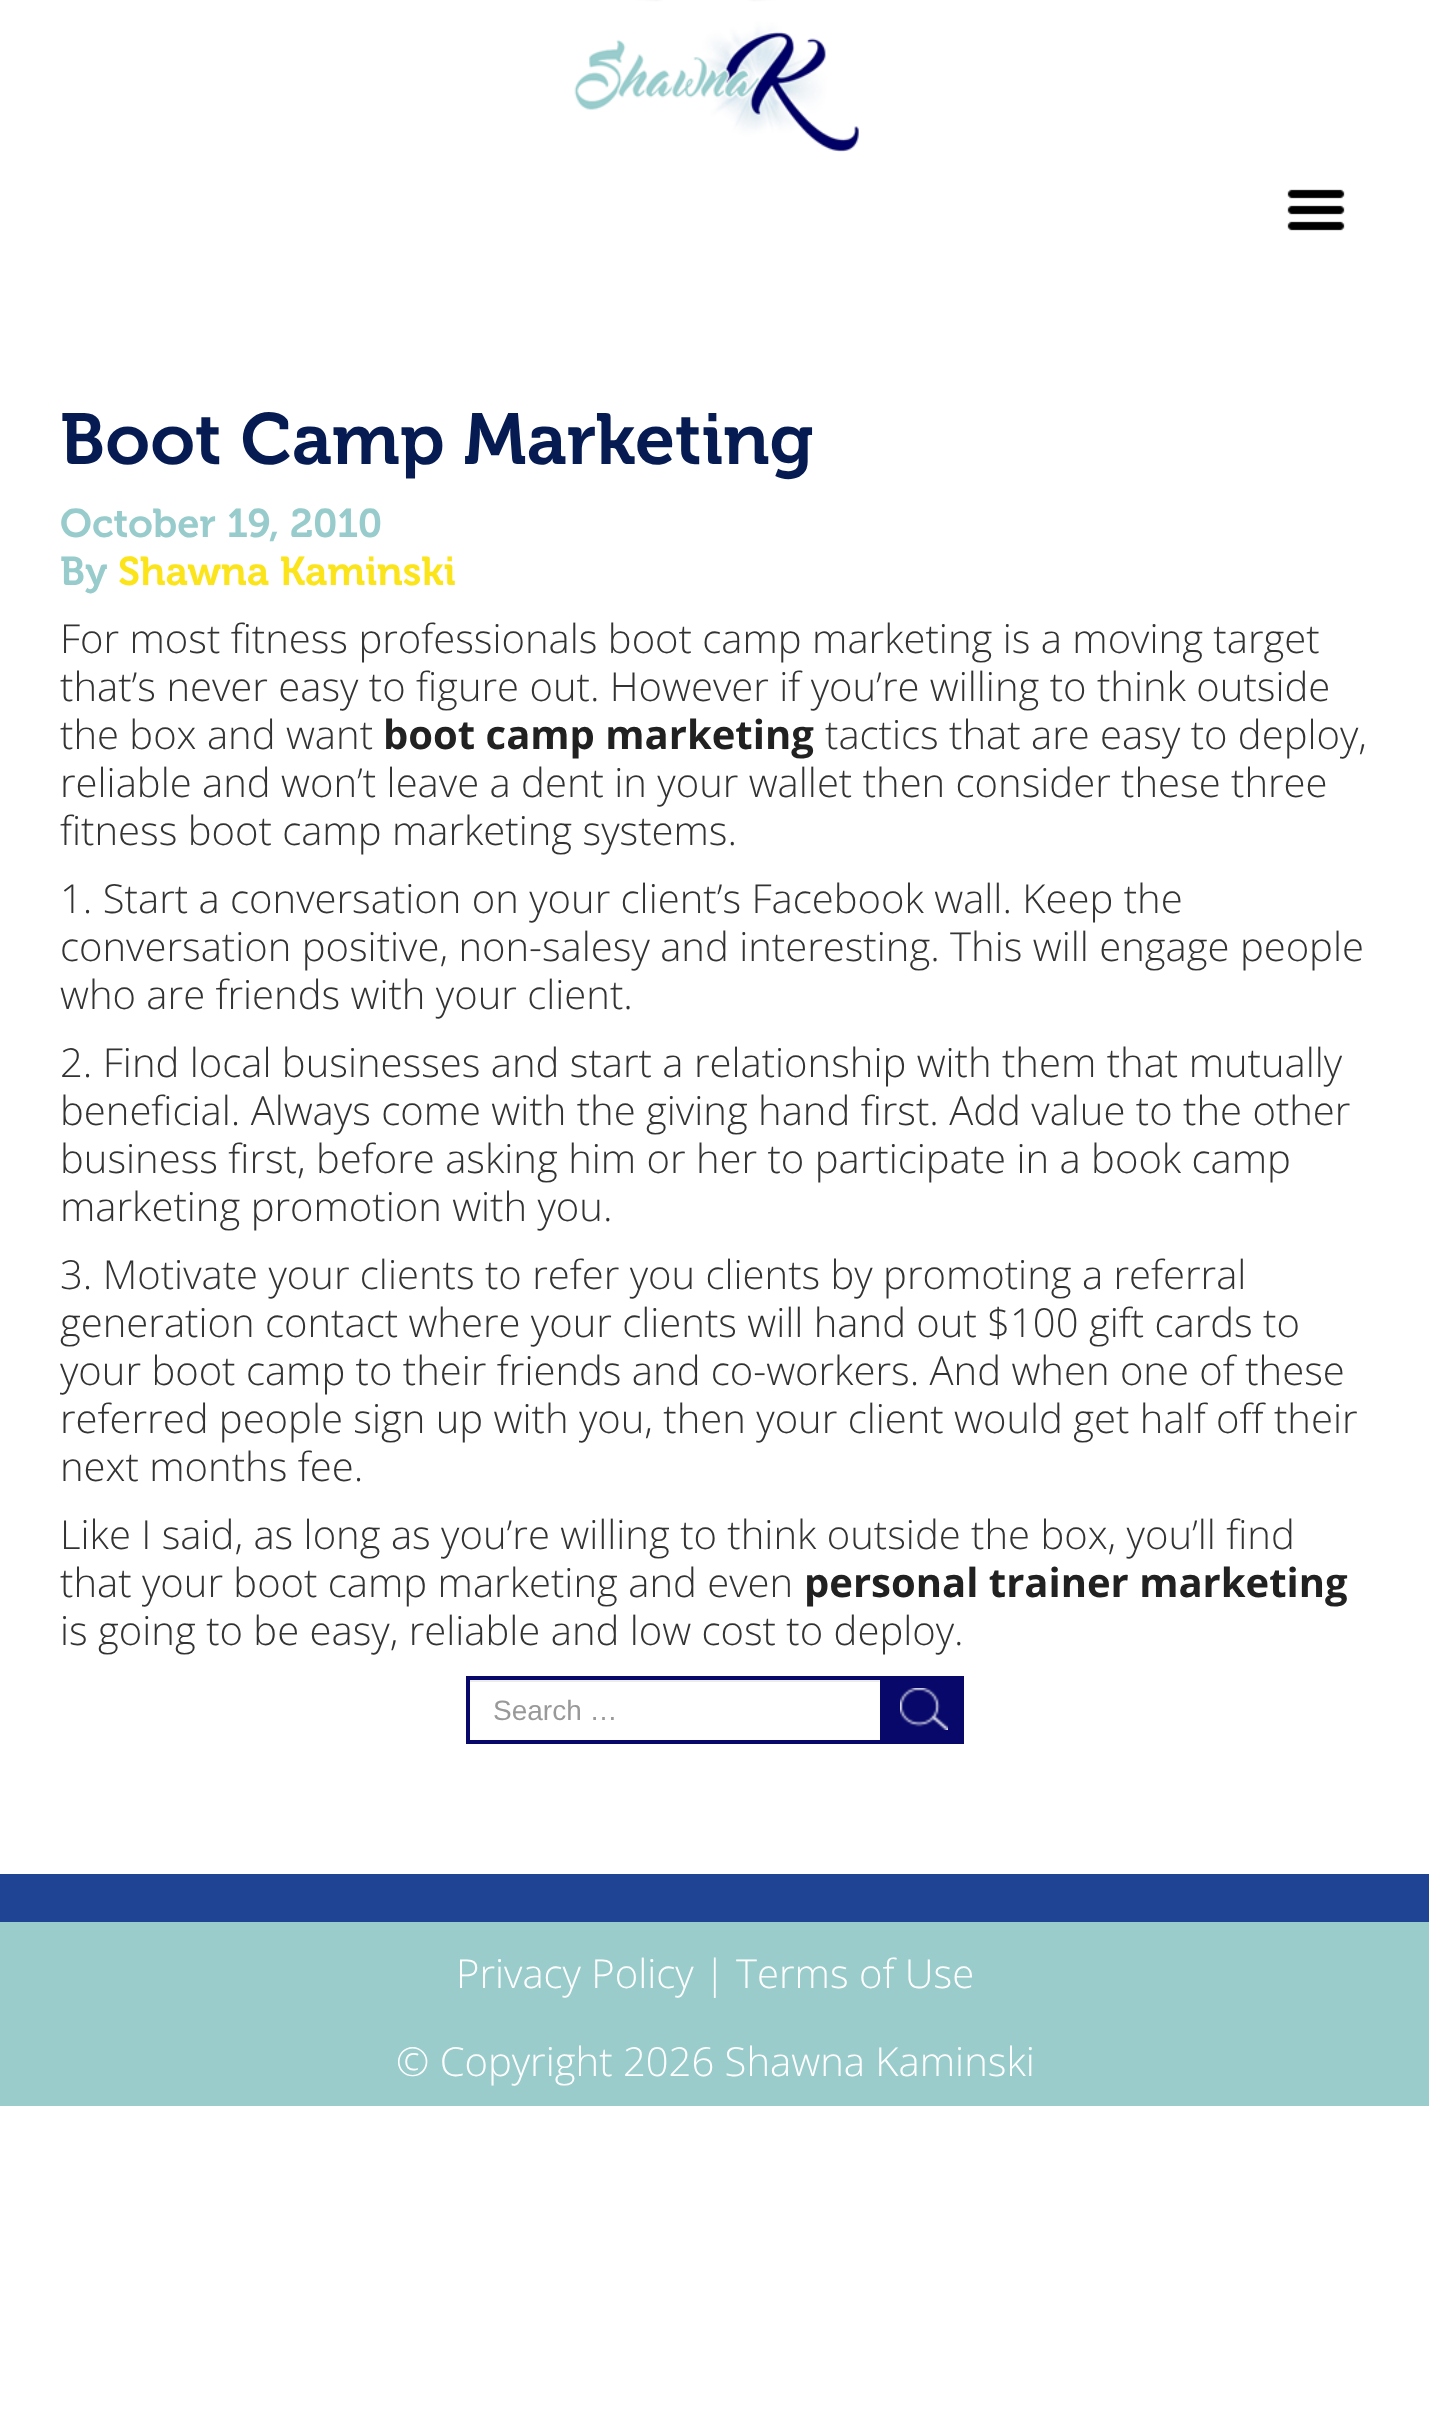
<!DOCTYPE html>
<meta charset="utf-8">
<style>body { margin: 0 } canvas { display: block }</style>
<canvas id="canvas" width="1429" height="2427"></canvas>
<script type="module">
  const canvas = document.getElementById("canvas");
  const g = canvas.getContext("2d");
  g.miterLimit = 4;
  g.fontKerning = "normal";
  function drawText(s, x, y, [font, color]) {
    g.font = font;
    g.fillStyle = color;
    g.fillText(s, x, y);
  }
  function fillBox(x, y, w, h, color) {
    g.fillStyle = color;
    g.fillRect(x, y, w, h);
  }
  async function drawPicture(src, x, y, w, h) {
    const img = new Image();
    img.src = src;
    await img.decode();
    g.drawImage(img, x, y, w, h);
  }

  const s1 = ["600 72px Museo", "#051B52"];
  const s2 = ["600 40px Museo", "#98CCCC"];
  const s3 = ["600 40px Museo", "#FBE41A"];
  const s4 = ["300 40px Open Sans", "#333333"];
  const s5 = ["bold 40px Open Sans", "#212121"];
  const s6 = ["28px Liberation Sans", "#999999"];
  const s7 = ["300 40px Open Sans", "#FFFFFF"];

  fillBox(0, 0, 1429, 2427, "#FFFFFF");
  await drawPicture("pic1.png", 574, 0, 285, 152);
  await drawPicture("pic2.png", 1287, 189, 58, 42);
  drawText("Boot Camp Marketing", 60, 464, s1);
  drawText("October 19, 2010", 60, 537, s2);
  drawText("By", 60, 585, s2);
  drawText("Shawna Kaminski", 118, 585, s3);
  drawText("For most fitness professionals boot camp marketing is a moving target", 60, 653, s4);
  drawText("that’s never easy to figure out. However if you’re willing to think outside", 60, 701, s4);
  drawText("the box and want", 60, 749, s4);
  drawText("boot camp marketing", 383, 749, s5);
  drawText("tactics that are easy to deploy,", 825, 749, s4);
  drawText("reliable and won’t leave a dent in your wallet then consider these three", 60, 797, s4);
  drawText("fitness boot camp marketing systems.", 60, 845, s4);
  drawText("1. Start a conversation on your client’s Facebook wall. Keep the", 60, 913, s4);
  drawText("conversation positive, non-salesy and interesting. This will engage people", 60, 961, s4);
  drawText("who are friends with your client.", 60, 1009, s4);
  drawText("2. Find local businesses and start a relationship with them that mutually", 60, 1077, s4);
  drawText("beneficial. Always come with the giving hand first. Add value to the other", 60, 1125, s4);
  drawText("business first, before asking him or her to participate in a book camp", 60, 1173, s4);
  drawText("marketing promotion with you.", 60, 1221, s4);
  drawText("3. Motivate your clients to refer you clients by promoting a referral", 60, 1289, s4);
  drawText("generation contact where your clients will hand out $100 gift cards to", 60, 1337, s4);
  drawText("your boot camp to their friends and co-workers. And when one of these", 60, 1385, s4);
  drawText("referred people sign up with you, then your client would get half off their", 60, 1433, s4);
  drawText("next months fee.", 60, 1481, s4);
  drawText("Like I said, as long as you’re willing to think outside the box, you’ll find", 60, 1549, s4);
  drawText("that your boot camp marketing and even", 60, 1597, s4);
  drawText("personal trainer marketing", 804, 1597, s5);
  drawText("is going to be easy, reliable and low cost to deploy.", 60, 1645, s4);
  fillBox(470, 1680, 410, 2, "#ECECEC");
  g.strokeStyle = "#08086B";
  g.lineWidth = 4;
  g.strokeRect(468, 1678, 414, 64);
  drawText("Search …", 493, 1720, s6);
  fillBox(884, 1676, 80, 68, "#08086B");
  await drawPicture("pic3.png", 900, 1688, 48, 42);
  fillBox(0, 1874, 1429, 48, "#204494");
  fillBox(0, 1922, 1429, 184, "#9ACCCC");
  drawText("Privacy Policy | Terms of Use", 456, 1988, s7);
  drawText("© Copyright 2026 Shawna Kaminski", 396, 2076, s7);
</script>
